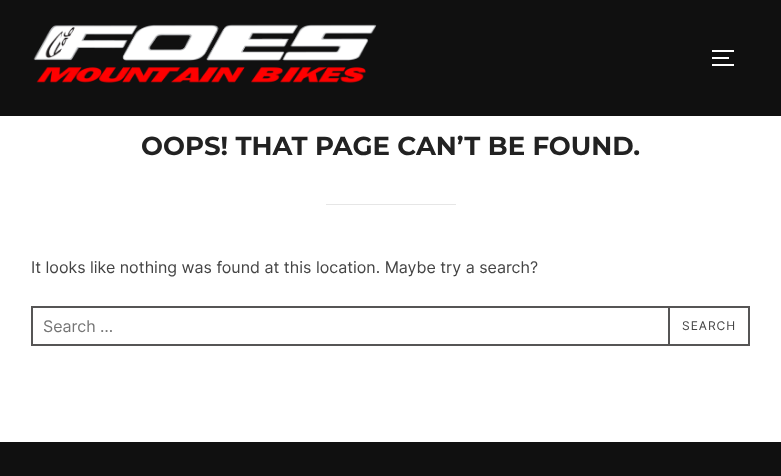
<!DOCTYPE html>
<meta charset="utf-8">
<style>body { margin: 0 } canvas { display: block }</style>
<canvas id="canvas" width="781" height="476"></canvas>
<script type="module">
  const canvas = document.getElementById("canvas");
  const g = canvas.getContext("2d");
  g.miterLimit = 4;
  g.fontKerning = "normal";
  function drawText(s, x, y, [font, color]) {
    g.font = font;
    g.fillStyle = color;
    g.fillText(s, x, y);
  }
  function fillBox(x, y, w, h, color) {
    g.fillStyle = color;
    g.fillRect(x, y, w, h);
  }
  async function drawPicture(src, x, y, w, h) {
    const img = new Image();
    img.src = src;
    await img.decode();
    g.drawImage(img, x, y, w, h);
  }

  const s1 = ["bold 26px Montserrat", "#222222"];
  const s2 = ["16px Inter", "#444444"];
  const s3 = ["16px Inter", "#757575"];
  const s4 = ["12px Inter", "#444444"];

  fillBox(0, 0, 781, 476, "#FFFFFF");
  fillBox(0, 0, 781, 116, "#101010");
  await drawPicture("pic1.png", 33, 24, 344, 59);
  fillBox(712, 50, 22, 2, "#FFFFFF");
  fillBox(712, 57, 17, 2, "#FFFFFF");
  fillBox(712, 64, 22, 2, "#FFFFFF");
  drawText("OOPS! THAT PAGE CAN’T BE FOUND.", 141, 155, s1);
  fillBox(326, 204, 130, 1, "#E6E6E6");
  drawText("It looks like nothing was found at this location. Maybe try a search?", 31, 273, s2);
  g.strokeStyle = "#565555";
  g.lineWidth = 2;
  g.strokeRect(32, 307, 717, 38);
  drawText("Search …", 43, 332, s3);
  g.strokeRect(669, 307, 80, 38);
  g.letterSpacing = "1px";
  drawText("SEARCH", 682, 330, s4);
  fillBox(0, 442, 781, 34, "#101010");
</script>
